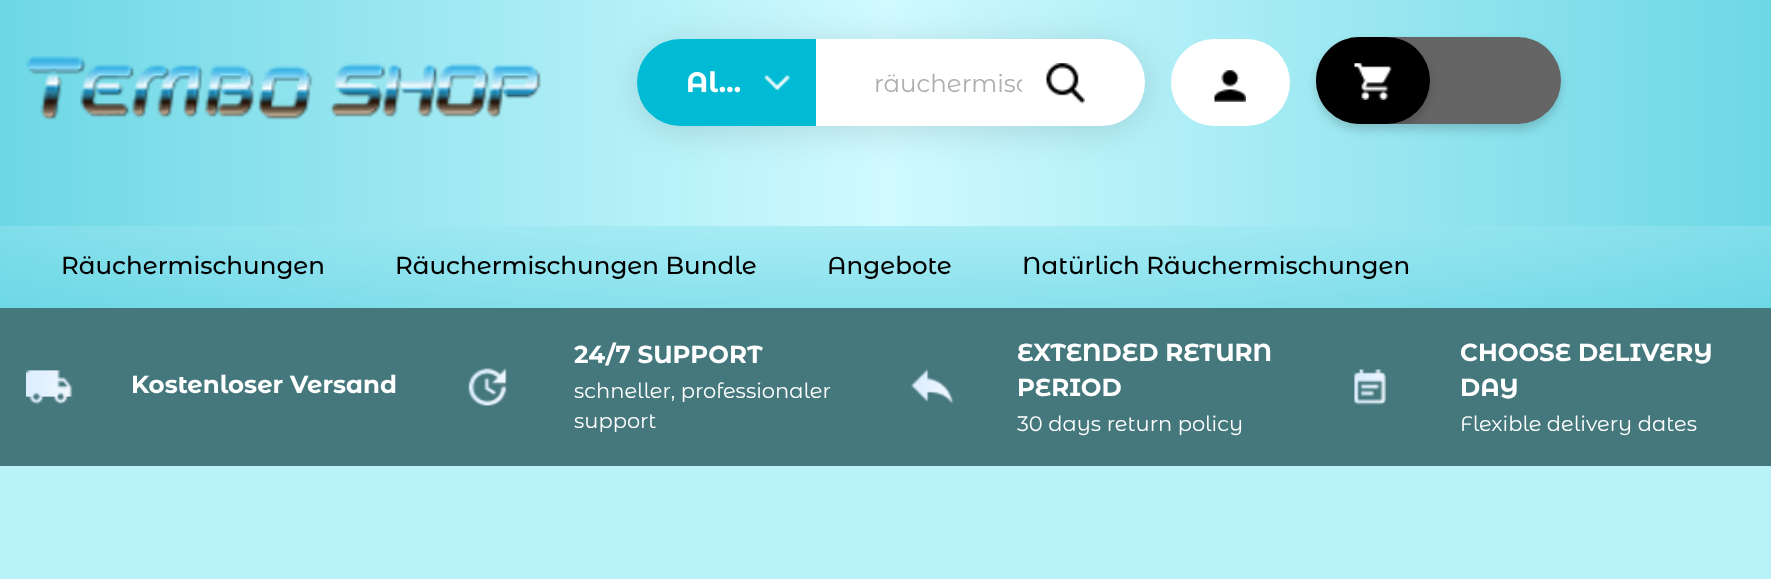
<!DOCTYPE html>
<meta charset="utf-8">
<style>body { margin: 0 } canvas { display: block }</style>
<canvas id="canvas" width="1771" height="579"></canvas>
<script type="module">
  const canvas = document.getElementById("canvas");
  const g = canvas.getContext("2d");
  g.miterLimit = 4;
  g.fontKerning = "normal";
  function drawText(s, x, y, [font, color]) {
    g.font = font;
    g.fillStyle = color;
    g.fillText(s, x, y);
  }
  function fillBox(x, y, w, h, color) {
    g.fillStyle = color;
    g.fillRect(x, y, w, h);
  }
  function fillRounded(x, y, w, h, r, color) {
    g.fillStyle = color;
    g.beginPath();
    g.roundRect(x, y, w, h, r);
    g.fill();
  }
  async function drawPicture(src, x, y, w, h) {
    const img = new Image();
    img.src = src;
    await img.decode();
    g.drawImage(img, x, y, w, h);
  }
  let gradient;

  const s1 = ["bold 28px Montserrat Alternates", "#FFFFFF"];
  const s2 = ["24.5px Montserrat Alternates", "#AEAEAE"];
  const s3 = ["500 24.5px Montserrat Alternates", "#000000"];
  const s4 = ["bold 24.5px Montserrat Alternates", "#FFFFFF"];
  const s5 = ["21px Montserrat Alternates", "#FFFFFF"];

  fillBox(0, 0, 1771, 579, "#B9F3F9");
  gradient = g.createRadialGradient(886, 564.81, 0, 886, 564.81, 1252);
  gradient.addColorStop(0, "#D0FAFF");
  gradient.addColorStop(1, "#6DD7E5");
  g.fillStyle = gradient;
  g.beginPath();
  g.rect(0, 226, 1771, 82);
  g.save();
  g.clip();
  g.scale(1, 266 / 1252);
  g.fillRect(0, 0, 1771, 2726);
  g.restore();
  gradient = g.createLinearGradient(0, 79, 1771, 79);
  gradient.addColorStop(0, "#6DD7E5");
  gradient.addColorStop(0.5, "#D0FAFF");
  gradient.addColorStop(1, "#6DD7E5");
  g.fillStyle = gradient;
  g.fillRect(0, 0, 1771, 226);
  await drawPicture("pic1.png", 26, 56, 515, 64);
  fillRounded(1171, 39, 119, 87, 43.5, "#FFFFFF");
  g.fillStyle = "rgba(0, 0, 0, 0.12)";
  g.filter = "blur(17.5px)";
  g.beginPath();
  g.roundRect(637, 44, 508, 87, 43.5);
  g.fill();
  g.filter = "none";
  g.fillStyle = "#FFFFFF";
  g.beginPath();
  g.roundRect(814, 39, 331, 87, [0, 43.5, 43.5, 0]);
  g.fill();
  g.fillStyle = "#00BBD3";
  g.beginPath();
  g.roundRect(637, 39, 179, 87, [43.5, 0, 0, 43.5]);
  g.fill();
  drawText("Al…", 686, 92, s1);
  await drawPicture("pic2.png", 764, 75, 26, 16);
  g.save();
  g.beginPath();
  g.rect(875, 67, 147, 31);
  g.clip();
  drawText("räuchermisc", 874, 92, s2);
  g.restore();
  await drawPicture("pic3.png", 1046, 63, 39, 41);
  await drawPicture("pic4.png", 1214, 70, 32, 32);
  g.fillStyle = "rgba(0, 0, 0, 0.16)";
  g.filter = "blur(5px)";
  g.beginPath();
  g.roundRect(1316, 42, 245, 88, 44);
  g.fill();
  g.filter = "none";
  fillRounded(1316, 37, 245, 87, 43.5, "#656565");
  g.save();
  g.beginPath();
  g.roundRect(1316, 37, 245, 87, 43.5);
  g.clip();
  g.fillStyle = "rgba(0, 0, 0, 0.16)";
  g.filter = "blur(5px)";
  g.beginPath();
  g.roundRect(1316, 42, 114, 88, 44);
  g.fill();
  g.filter = "none";
  g.restore();
  fillRounded(1316, 37, 114, 87, 43.5, "#000000");
  await drawPicture("pic5.png", 1354, 63, 38, 37);
  drawText("Räuchermischungen", 61, 274, s3);
  drawText("Räuchermischungen Bundle", 395, 274, s3);
  drawText("Angebote", 827, 274, s3);
  drawText("Natürlich Räuchermischungen", 1022, 274, s3);
  fillBox(0, 308, 1771, 158, "#45787D");
  await drawPicture("pic6.png", 26, 370, 47, 34);
  drawText("Kostenloser Versand", 131, 393, s4);
  await drawPicture("pic7.png", 468, 368, 39, 38);
  drawText("24/7 SUPPORT", 574, 363, s4);
  drawText("schneller, professionaler", 574, 398, s5);
  drawText("support", 574, 428, s5);
  await drawPicture("pic8.png", 911, 369, 43, 35);
  drawText("EXTENDED RETURN", 1017, 361, s4);
  drawText("PERIOD", 1017, 396, s4);
  drawText("30 days return policy", 1017, 431, s5);
  await drawPicture("pic9.png", 1354, 369, 32, 36);
  drawText("CHOOSE DELIVERY", 1460, 361, s4);
  drawText("DAY", 1460, 396, s4);
  drawText("Flexible delivery dates", 1460, 431, s5);
</script>
